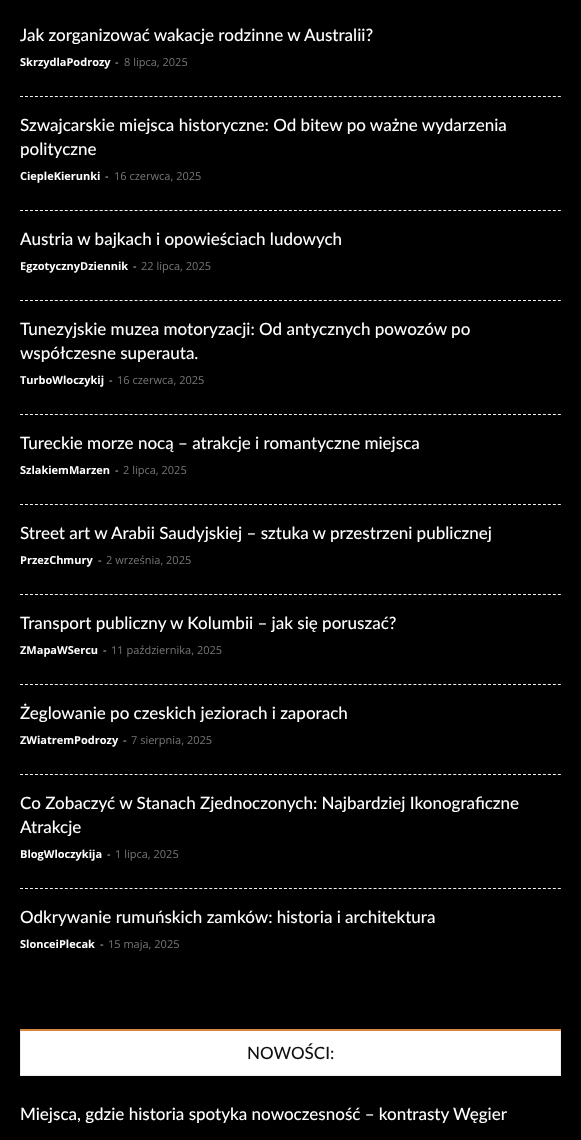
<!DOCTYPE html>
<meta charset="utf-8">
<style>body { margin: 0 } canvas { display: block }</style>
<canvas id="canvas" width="581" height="1140"></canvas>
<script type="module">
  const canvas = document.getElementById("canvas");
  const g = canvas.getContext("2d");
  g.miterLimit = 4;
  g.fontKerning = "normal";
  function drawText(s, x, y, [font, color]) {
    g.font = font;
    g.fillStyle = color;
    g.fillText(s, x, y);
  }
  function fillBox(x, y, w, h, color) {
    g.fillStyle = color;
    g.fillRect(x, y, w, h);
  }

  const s1 = ["500 17px Lato", "#FFFFFF"];
  const s2 = ["bold 11px Open Sans", "#FFFFFF"];
  const s3 = ["11px Open Sans", "#CCCCCC"];
  const s4 = ["11px Open Sans", "#767676"];
  const s5 = ["500 17px Lato", "#111111"];

  fillBox(0, 0, 581, 1140, "#000000");
  g.beginPath();
  g.moveTo(20, 96.5);
  g.lineTo(561, 96.5);
  g.strokeStyle = "#F2F2F2";
  g.setLineDash([3, 1.98]);
  g.stroke();
  drawText("Jak zorganizować wakacje rodzinne w Australii?", 20, 41, s1);
  drawText("SkrzydlaPodrozy", 20, 66, s2);
  drawText("-", 115, 66, s3);
  drawText("8 lipca, 2025", 124, 66, s4);
  g.beginPath();
  g.moveTo(20, 210.5);
  g.lineTo(561, 210.5);
  g.stroke();
  drawText("Szwajcarskie miejsca historyczne: Od bitew po ważne wydarzenia", 20, 131, s1);
  drawText("polityczne", 20, 155, s1);
  drawText("CiepleKierunki", 20, 180, s2);
  drawText("-", 105, 180, s3);
  drawText("16 czerwca, 2025", 114, 180, s4);
  g.beginPath();
  g.moveTo(20, 300.5);
  g.lineTo(561, 300.5);
  g.stroke();
  drawText("Austria w bajkach i opowieściach ludowych", 20, 245, s1);
  drawText("EgzotycznyDziennik", 20, 270, s2);
  drawText("-", 133, 270, s3);
  drawText("22 lipca, 2025", 141, 270, s4);
  g.beginPath();
  g.moveTo(20, 414.5);
  g.lineTo(561, 414.5);
  g.stroke();
  drawText("Tunezyjskie muzea motoryzacji: Od antycznych powozów po", 20, 335, s1);
  drawText("współczesne superauta.", 20, 359, s1);
  drawText("TurboWloczykij", 20, 384, s2);
  drawText("-", 109, 384, s3);
  drawText("16 czerwca, 2025", 117, 384, s4);
  g.beginPath();
  g.moveTo(20, 504.5);
  g.lineTo(561, 504.5);
  g.stroke();
  drawText("Tureckie morze nocą – atrakcje i romantyczne miejsca", 20, 449, s1);
  drawText("SzlakiemMarzen", 20, 474, s2);
  drawText("-", 115, 474, s3);
  drawText("2 lipca, 2025", 123, 474, s4);
  g.beginPath();
  g.moveTo(20, 594.5);
  g.lineTo(561, 594.5);
  g.stroke();
  drawText("Street art w Arabii Saudyjskiej – sztuka w przestrzeni publicznej", 20, 539, s1);
  drawText("PrzezChmury", 20, 564, s2);
  drawText("-", 98, 564, s3);
  drawText("2 września, 2025", 106, 564, s4);
  g.beginPath();
  g.moveTo(20, 684.5);
  g.lineTo(561, 684.5);
  g.stroke();
  drawText("Transport publiczny w Kolumbii – jak się poruszać?", 20, 629, s1);
  drawText("ZMapaWSercu", 20, 654, s2);
  drawText("-", 103, 654, s3);
  drawText("11 października, 2025", 111, 654, s4);
  g.beginPath();
  g.moveTo(20, 774.5);
  g.lineTo(561, 774.5);
  g.stroke();
  drawText("Żeglowanie po czeskich jeziorach i zaporach", 20, 719, s1);
  drawText("ZWiatremPodrozy", 20, 744, s2);
  drawText("-", 123, 744, s3);
  drawText("7 sierpnia, 2025", 131, 744, s4);
  g.beginPath();
  g.moveTo(20, 888.5);
  g.lineTo(561, 888.5);
  g.stroke();
  drawText("Co Zobaczyć w Stanach Zjednoczonych: Najbardziej Ikonograficzne", 20, 809, s1);
  drawText("Atrakcje", 20, 833, s1);
  drawText("BlogWloczykija", 20, 858, s2);
  drawText("-", 107, 858, s3);
  drawText("1 lipca, 2025", 115, 858, s4);
  drawText("Odkrywanie rumuńskich zamków: historia i architektura", 20, 923, s1);
  drawText("SlonceiPlecak", 20, 948, s2);
  drawText("-", 100, 948, s3);
  drawText("15 maja, 2025", 108, 948, s4);
  fillBox(21, 1031, 539, 44, "#FFFFFF");
  g.strokeStyle = "#EDEDED";
  g.setLineDash([]);
  g.strokeRect(20.5, 1029.5, 540, 46);
  fillBox(20, 1029, 541, 2, "#D88741");
  drawText("NOWOŚCI:", 247, 1059, s5);
  drawText("Miejsca, gdzie historia spotyka nowoczesność – kontrasty Węgier", 20, 1120, s1);
</script>
